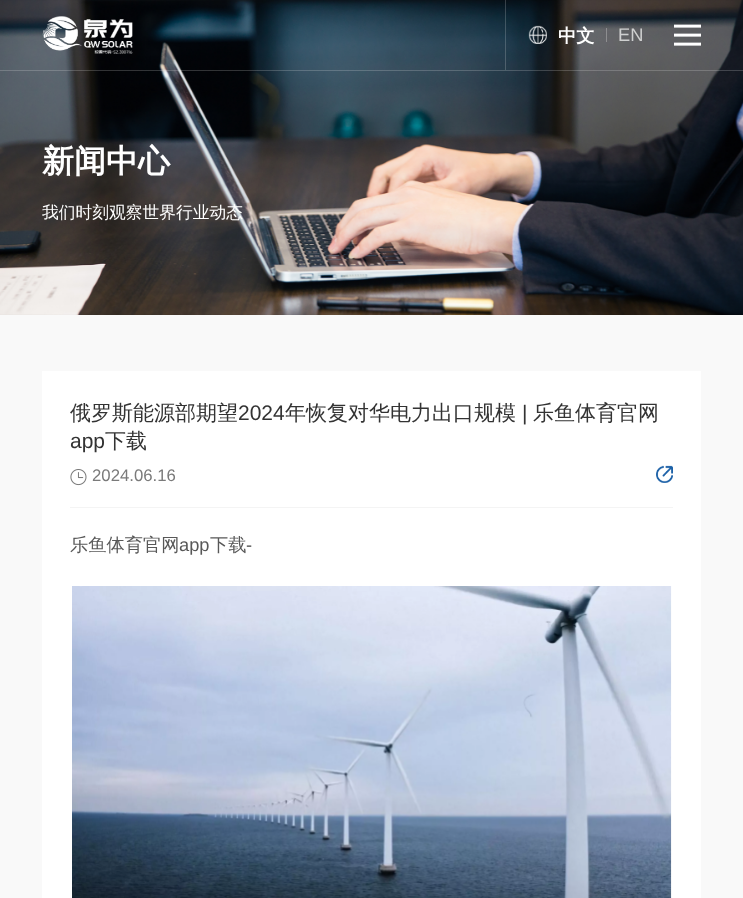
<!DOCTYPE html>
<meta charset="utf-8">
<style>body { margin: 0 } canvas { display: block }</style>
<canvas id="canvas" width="743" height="898"></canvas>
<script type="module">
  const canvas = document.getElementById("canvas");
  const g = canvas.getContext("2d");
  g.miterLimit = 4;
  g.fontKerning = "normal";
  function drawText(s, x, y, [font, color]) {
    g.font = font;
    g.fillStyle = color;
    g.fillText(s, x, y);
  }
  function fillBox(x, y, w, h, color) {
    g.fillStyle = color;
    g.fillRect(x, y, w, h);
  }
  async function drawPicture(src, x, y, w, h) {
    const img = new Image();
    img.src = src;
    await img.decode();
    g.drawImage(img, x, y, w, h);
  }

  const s1 = ["bold 18.25px WenQuanYi Zen Hei", "#FFFFFF"];
  const s2 = ["18.25px Liberation Sans", "#CFD0D0"];
  const s3 = ["bold 32px WenQuanYi Zen Hei", "#FFFFFF"];
  const s4 = ["500 16.75px WenQuanYi Zen Hei", "#FFFFFF"];
  const s5 = ["500 21px WenQuanYi Zen Hei", "#333333"];
  const s6 = ["21px Liberation Sans", "#333333"];
  const s7 = ["16.75px Liberation Sans", "#7A7A7A"];
  const s8 = ["500 18.25px WenQuanYi Zen Hei", "#585858"];
  const s9 = ["18.25px Liberation Sans", "#585858"];

  fillBox(0, 0, 743, 898, "#F9F9F9");
  await drawPicture("pic4.png", 0, 0, 743, 315);
  fillBox(0, 70, 743, 1, "rgba(245, 245, 245, 0.2)");
  await drawPicture("pic1.png", 42, 16, 91, 38);
  fillBox(505, 0, 1, 70, "rgba(245, 245, 245, 0.2)");
  await drawPicture("pic2.png", 528, 25, 19, 19);
  drawText("中文", 558, 42, s1);
  fillBox(606, 28, 1, 14, "rgba(204, 204, 204, 0.4)");
  drawText("EN", 618, 41, s2);
  await drawPicture("pic3.png", 674, 24, 27, 22);
  drawText("新闻中心", 42, 172, s3);
  drawText("我们时刻观察世界行业动态", 42, 218, s4);
  fillBox(42, 371, 659, 527, "#FFFFFF");
  fillBox(70, 507, 603, 1, "#F4F4F4");
  drawText("俄罗斯能源部期望", 70, 420, s5);
  drawText("2024", 238, 420, s6);
  drawText("年恢复对华电力出口规模", 285, 420, s5);
  drawText("|", 522, 420, s6);
  drawText("乐鱼体育官网", 533, 420, s5);
  drawText("app", 70, 448, s6);
  drawText("下载", 105, 448, s5);
  await drawPicture("pic5.png", 70, 469, 17, 17);
  drawText("2024.06.16", 92, 481, s7);
  await drawPicture("pic6.png", 656, 465, 17, 18);
  drawText("乐鱼体育官网", 70, 551, s8);
  drawText("app", 179, 551, s9);
  drawText("下载", 210, 551, s8);
  drawText("-", 246, 551, s9);
  await drawPicture("pic7.png", 72, 586, 600, 312);
</script>
